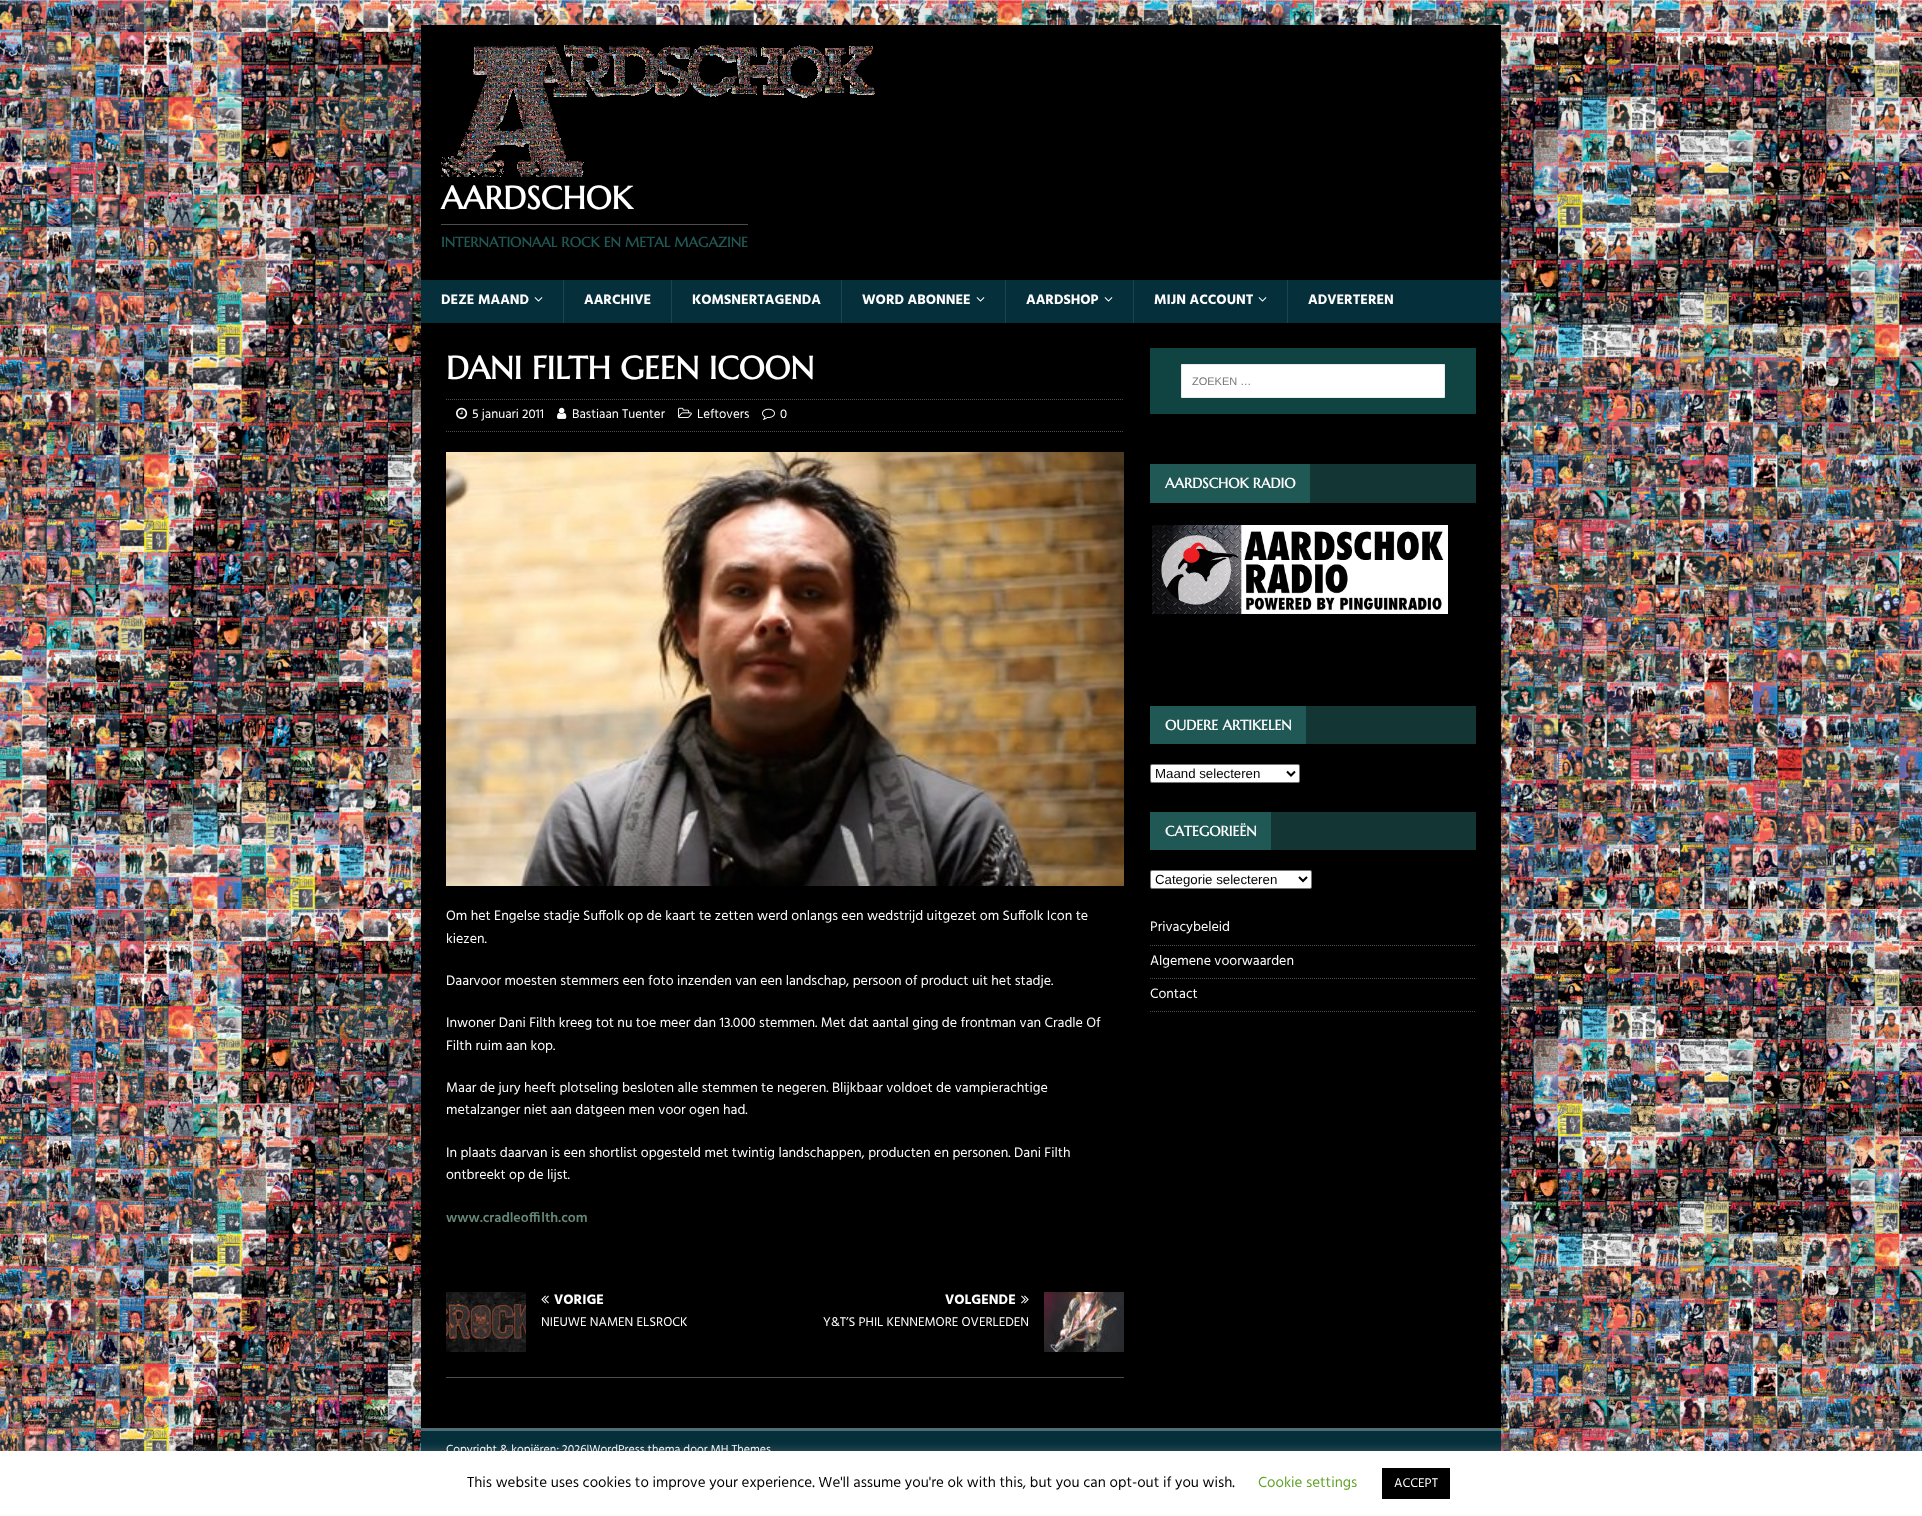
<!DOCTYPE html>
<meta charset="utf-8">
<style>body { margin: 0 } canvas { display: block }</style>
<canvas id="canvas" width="1922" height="1516"></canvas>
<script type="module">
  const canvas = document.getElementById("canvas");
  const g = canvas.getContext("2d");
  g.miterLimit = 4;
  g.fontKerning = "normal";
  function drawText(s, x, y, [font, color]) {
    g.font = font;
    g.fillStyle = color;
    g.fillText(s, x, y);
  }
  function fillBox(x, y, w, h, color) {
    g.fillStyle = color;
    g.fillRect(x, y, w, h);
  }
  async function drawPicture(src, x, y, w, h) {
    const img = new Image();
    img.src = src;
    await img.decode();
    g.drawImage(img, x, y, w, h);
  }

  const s1 = ["bold 32px Marcellus SC", "#FFFFFF"];
  const s2 = ["bold 14px Marcellus SC", "#205855"];
  const s3 = ["bold 14px Hind", "#FFFFFF"];
  const s4 = ["13px Hind", "#FFFFFF"];
  const s5 = ["14px Hind", "#FFFFFF"];
  const s6 = ["600 14px Hind", "#658A78"];
  const s7 = ["11px Liberation Sans", "#757575"];
  const s8 = ["bold 14px Marcellus SC", "#FFFFFF"];
  const s9 = ["13.25px Liberation Sans", "#000000"];
  const s10 = ["12px Hind", "#FFFFFF"];
  const s11 = ["15px Hind", "#000000"];
  const s12 = ["15px Hind", "#62A329"];

  fillBox(0, 0, 1922, 1516, "#FFFFFF");
  await drawPicture("pic1.png", 0, 0, 1922, 1451);
  g.fillStyle = "rgba(50, 50, 50, 0.17)";
  g.filter = "blur(5px)";
  g.beginPath();
  g.rect(421, 25, 1080, 1446);
  g.fill();
  g.filter = "none";
  fillBox(421, 25, 1080, 255, "#000000");
  await drawPicture("pic2.png", 441, 45, 434, 132);
  drawText("AARDSCHOK", 441, 209, s1);
  fillBox(441, 224, 307, 1, "#4D4D4D");
  drawText("INTERNATIONAAL ROCK EN METAL MAGAZINE", 441, 247, s2);
  fillBox(421, 280, 1080, 43, "#052F3B");
  drawText("DEZE MAAND", 441, 304, s3);
  await drawPicture("pic3.png", 534, 297, 9, 5);
  fillBox(563, 280, 1, 43, "#1E444F");
  drawText("AARCHIVE", 584, 304, s3);
  fillBox(671, 280, 1, 43, "#1E444F");
  drawText("KOMSNERTAGENDA", 692, 304, s3);
  fillBox(841, 280, 1, 43, "#1E444F");
  drawText("WORD ABONNEE", 862, 304, s3);
  await drawPicture("pic3.png", 976, 297, 9, 5);
  fillBox(1005, 280, 1, 43, "#1E444F");
  drawText("AARDSHOP", 1026, 304, s3);
  await drawPicture("pic3.png", 1104, 297, 9, 5);
  fillBox(1133, 280, 1, 43, "#1E444F");
  drawText("MIJN ACCOUNT", 1154, 304, s3);
  await drawPicture("pic3.png", 1258, 297, 9, 5);
  fillBox(1287, 280, 1, 43, "#1E444F");
  drawText("ADVERTEREN", 1308, 304, s3);
  fillBox(421, 323, 1080, 1105, "#000000");
  drawText("DANI FILTH GEEN ICOON", 446, 379, s1);
  g.beginPath();
  g.moveTo(446, 399.5);
  g.lineTo(1124, 399.5);
  g.strokeStyle = "#4D4D4D";
  g.setLineDash([1, 1]);
  g.stroke();
  g.beginPath();
  g.moveTo(446, 431.5);
  g.lineTo(1124, 431.5);
  g.stroke();
  await drawPicture("pic4.png", 456, 407, 12, 12);
  drawText("5 januari 2011", 472, 418, s4);
  await drawPicture("pic5.png", 557, 407, 10, 12);
  drawText("Bastiaan Tuenter", 572, 418, s4);
  await drawPicture("pic6.png", 678, 407, 14, 11);
  drawText("Leftovers", 697, 418, s4);
  await drawPicture("pic7.png", 762, 408, 13, 12);
  drawText("0", 780, 418, s4);
  await drawPicture("pic8.png", 446, 452, 678, 434);
  drawText("Om het Engelse stadje Suffolk op de kaart te zetten werd onlangs een wedstrijd uitgezet om Suffolk Icon te", 446, 920, s5);
  drawText("kiezen.", 446, 943, s5);
  drawText("Daarvoor moesten stemmers een foto inzenden van een landschap, persoon of product uit het stadje.", 446, 985, s5);
  drawText("Inwoner Dani Filth kreeg tot nu toe meer dan 13.000 stemmen. Met dat aantal ging de frontman van Cradle Of", 446, 1027, s5);
  drawText("Filth ruim aan kop.", 446, 1050, s5);
  drawText("Maar de jury heeft plotseling besloten alle stemmen te negeren. Blijkbaar voldoet de vampierachtige", 446, 1092, s5);
  drawText("metalzanger niet aan datgeen men voor ogen had.", 446, 1114, s5);
  drawText("In plaats daarvan is een shortlist opgesteld met twintig landschappen, producten en personen. Dani Filth", 446, 1157, s5);
  drawText("ontbreekt op de lijst.", 446, 1179, s5);
  drawText("www.cradleoffilth.com", 446, 1222, s6);
  fillBox(446, 1377, 678, 1, "#4D4D4D");
  await drawPicture("pic9.png", 446, 1292, 80, 60);
  await drawPicture("pic10.png", 541, 1295, 8, 9);
  drawText("VORIGE", 554, 1304, s3);
  drawText("NIEUWE NAMEN ELSROCK", 541, 1326, s4);
  drawText("VOLGENDE", 945, 1304, s3);
  await drawPicture("pic11.png", 1021, 1295, 8, 9);
  await drawPicture("pic12.png", 1044, 1292, 80, 60);
  drawText("Y&T’S PHIL KENNEMORE OVERLEDEN", 823, 1326, s4);
  fillBox(1150, 348, 326, 66, "#104442");
  g.fillStyle = "#FFFFFF";
  g.beginPath();
  g.rect(1181.5, 364.5, 263, 33);
  g.fill();
  g.strokeStyle = "#EBEBEB";
  g.setLineDash([]);
  g.stroke();
  drawText("ZOEKEN …", 1192, 385, s7);
  fillBox(1310, 464, 166, 39, "#133533");
  fillBox(1150, 464, 160, 39, "#205855");
  drawText("AARDSCHOK RADIO", 1165, 488, s8);
  await drawPicture("pic13.png", 1152, 525, 296, 89);
  fillBox(1306, 706, 170, 38, "#133533");
  fillBox(1150, 706, 156, 38, "#205855");
  drawText("OUDERE ARTIKELEN", 1165, 730, s8);
  g.beginPath();
  g.roundRect(1150.5, 764.5, 149, 18, 1.5);
  g.fill();
  g.strokeStyle = "#767676";
  g.stroke();
  g.beginPath();
  g.moveTo(1287, 771.5);
  g.lineTo(1291, 775.5);
  g.lineTo(1295, 771.5);
  g.strokeStyle = "#000000";
  g.lineWidth = 2;
  g.stroke();
  drawText("Maand selecteren", 1155, 778, s9);
  fillBox(1271, 812, 205, 38, "#133533");
  fillBox(1150, 812, 121, 38, "#205855");
  drawText("CATEGORIEËN", 1165, 836, s8);
  g.beginPath();
  g.roundRect(1150.5, 870.5, 161, 18, 1.5);
  g.fill();
  g.strokeStyle = "#767676";
  g.lineWidth = 1;
  g.stroke();
  g.beginPath();
  g.moveTo(1299, 877);
  g.lineTo(1303, 881);
  g.lineTo(1307, 877);
  g.strokeStyle = "#000000";
  g.lineWidth = 2;
  g.stroke();
  drawText("Categorie selecteren", 1155, 884, s9);
  g.beginPath();
  g.moveTo(1150, 945.5);
  g.lineTo(1476, 945.5);
  g.strokeStyle = "#4D4D4D";
  g.lineWidth = 1;
  g.setLineDash([1, 1]);
  g.stroke();
  drawText("Privacybeleid", 1150, 931, s5);
  g.beginPath();
  g.moveTo(1150, 978.5);
  g.lineTo(1476, 978.5);
  g.stroke();
  drawText("Algemene voorwaarden", 1150, 965, s5);
  g.beginPath();
  g.moveTo(1150, 1011.5);
  g.lineTo(1476, 1011.5);
  g.stroke();
  drawText("Contact", 1150, 998, s5);
  fillBox(421, 1431, 1080, 20, "#052F3B");
  fillBox(421, 1428, 1080, 3, "#506D76");
  drawText("Copyright & kopiëren; 2026|WordPress thema door MH Themes", 446, 1453, s10);
  g.fillStyle = "rgba(172, 171, 171, 0.3)";
  g.filter = "blur(5px)";
  g.beginPath();
  g.rect(0, 1450, 1922, 65);
  g.fill();
  g.filter = "none";
  g.save();
  g.beginPath();
  g.moveTo(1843, 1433);
  g.lineTo(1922, 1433);
  g.lineTo(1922, 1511);
  g.lineTo(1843, 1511);
  g.closePath();
  g.moveTo(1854, 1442);
  g.lineTo(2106, 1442);
  g.bezierCurveTo(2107, 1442, 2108, 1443, 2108, 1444);
  g.lineTo(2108, 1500);
  g.bezierCurveTo(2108, 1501, 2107, 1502, 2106, 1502);
  g.lineTo(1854, 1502);
  g.bezierCurveTo(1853, 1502, 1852, 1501, 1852, 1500);
  g.lineTo(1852, 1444);
  g.bezierCurveTo(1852, 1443, 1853, 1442, 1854, 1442);
  g.closePath();
  g.clip("evenodd");
  g.fillStyle = "#808080";
  g.filter = "blur(2.5px)";
  g.beginPath();
  g.roundRect(1852, 1442, 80, 60, 2);
  g.fill();
  g.filter = "none";
  g.restore();
  fillBox(0, 1451, 1922, 65, "#FFFFFF");
  drawText("This website uses cookies to improve your experience. We'll assume you're ok with this, but you can opt-out if you wish.", 467, 1487, s11);
  drawText("Cookie settings", 1258, 1487, s12);
  fillBox(1382, 1468, 68, 31, "#000000");
  drawText("ACCEPT", 1394, 1487, s4);
</script>
